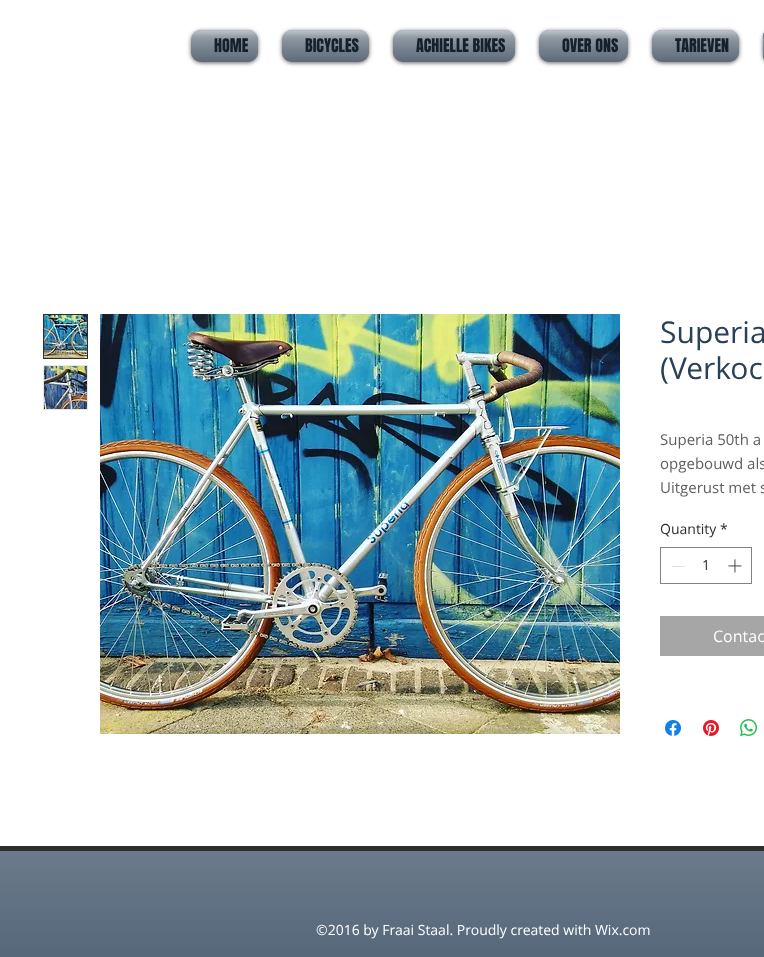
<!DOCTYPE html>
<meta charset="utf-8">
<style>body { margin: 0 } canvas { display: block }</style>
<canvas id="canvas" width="764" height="957"></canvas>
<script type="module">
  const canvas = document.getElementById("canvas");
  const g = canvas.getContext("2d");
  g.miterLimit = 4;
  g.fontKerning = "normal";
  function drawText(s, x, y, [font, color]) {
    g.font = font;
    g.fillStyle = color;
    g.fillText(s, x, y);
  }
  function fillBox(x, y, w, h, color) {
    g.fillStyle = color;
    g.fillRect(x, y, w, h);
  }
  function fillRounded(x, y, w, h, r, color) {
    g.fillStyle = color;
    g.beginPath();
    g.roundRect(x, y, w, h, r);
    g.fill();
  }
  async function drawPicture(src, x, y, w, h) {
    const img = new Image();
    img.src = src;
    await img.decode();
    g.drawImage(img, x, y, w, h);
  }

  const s1 = ["16px Anton", "#14202C"];
  const s2 = ["30px Open Sans", "#294057"];
  const s3 = ["15px Open Sans", "#605E5E"];
  const s4 = ["14px Open Sans", "#2F2E2E"];
  const s5 = ["16px Open Sans", "#FFFFFF"];
  const s6 = ["14px Open Sans", "#FFFFFF"];

  fillBox(0, 0, 764, 957, "#FFFFFF");
  g.fillStyle = "rgba(0, 0, 0, 0.6)";
  g.filter = "blur(2px)";
  g.beginPath();
  g.roundRect(191, 31, 67, 32, 10);
  g.fill();
  g.filter = "none";
  fillRounded(191, 30, 67, 32, 10, "#5F7081");
  await drawPicture("pic1.png", 191, 30, 67, 32);
  await drawPicture("pic2.png", 191, 30, 67, 32);
  drawText("HOME", 214, 52, s1);
  g.fillStyle = "rgba(0, 0, 0, 0.6)";
  g.filter = "blur(2px)";
  g.beginPath();
  g.roundRect(282, 31, 87, 32, 10);
  g.fill();
  g.filter = "none";
  fillRounded(282, 30, 87, 32, 10, "#5F7081");
  await drawPicture("pic3.png", 282, 30, 87, 32);
  await drawPicture("pic4.png", 282, 30, 87, 32);
  drawText("BICYCLES", 305, 52, s1);
  g.fillStyle = "rgba(0, 0, 0, 0.6)";
  g.filter = "blur(2px)";
  g.beginPath();
  g.roundRect(393, 31, 122, 32, 10);
  g.fill();
  g.filter = "none";
  fillRounded(393, 30, 122, 32, 10, "#5F7081");
  await drawPicture("pic5.png", 393, 30, 122, 32);
  await drawPicture("pic6.png", 393, 30, 122, 32);
  drawText("ACHIELLE BIKES", 416, 52, s1);
  g.fillStyle = "rgba(0, 0, 0, 0.6)";
  g.filter = "blur(2px)";
  g.beginPath();
  g.roundRect(539, 31, 89, 32, 10);
  g.fill();
  g.filter = "none";
  fillRounded(539, 30, 89, 32, 10, "#5F7081");
  await drawPicture("pic7.png", 539, 30, 89, 32);
  await drawPicture("pic8.png", 539, 30, 89, 32);
  drawText("OVER ONS", 562, 52, s1);
  g.fillStyle = "rgba(0, 0, 0, 0.6)";
  g.filter = "blur(2px)";
  g.beginPath();
  g.roundRect(652, 31, 87, 32, 10);
  g.fill();
  g.filter = "none";
  fillRounded(652, 30, 87, 32, 10, "#5F7081");
  await drawPicture("pic3.png", 652, 30, 87, 32);
  await drawPicture("pic4.png", 652, 30, 87, 32);
  drawText("TARIEVEN", 675, 52, s1);
  g.fillStyle = "rgba(0, 0, 0, 0.6)";
  g.filter = "blur(2px)";
  g.beginPath();
  g.roundRect(763, 31, 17, 32, 10);
  g.fill();
  g.filter = "none";
  fillRounded(763, 30, 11, 32, 10, "#5F7081");
  await drawPicture("pic9.png", 763, 36, 1, 20);
  await drawPicture("pic10.png", 763, 38, 1, 18);
  g.strokeStyle = "#2F2E2E";
  g.strokeRect(43.5, 314.5, 44, 44);
  await drawPicture("pic11.png", 44, 315, 43, 43);
  fillBox(43, 365, 45, 45, "#E5E5E5");
  await drawPicture("pic12.png", 44, 366, 43, 43);
  await drawPicture("pic13.png", 100, 314, 520, 420);
  drawText("Superia", 660, 343, s2);
  drawText("(Verkoc", 660, 379, s2);
  drawText("Superia 50th a", 660, 445, s3);
  drawText("opgebouwd als", 660, 469, s3);
  drawText("Uitgerust met s", 660, 493, s3);
  drawText("Quantity", 660, 534, s4);
  drawText("*", 720, 534, s4);
  g.strokeStyle = "#828282";
  g.strokeRect(660.5, 547.5, 91, 36);
  fillBox(672, 566, 13, 1, "#E3E3E3");
  drawText("1", 702, 570, s4);
  await drawPicture("pic14.png", 728, 559, 14, 14);
  fillBox(660, 616, 104, 40, "#A6A6A6");
  drawText("Contac", 713, 642, s5);
  await drawPicture("pic15.png", 665, 720, 16, 16);
  await drawPicture("pic16.png", 703, 720, 16, 16);
  await drawPicture("pic17.png", 740, 719, 17, 17);
  fillBox(0, 851, 764, 106, "#384D63");
  await drawPicture("pic18.png", 0, 851, 764, 106);
  fillBox(0, 846, 764, 5, "#2F2E2E");
  drawText("©2016 by Fraai Staal. Proudly created with Wix.com", 316, 935, s6);
</script>
